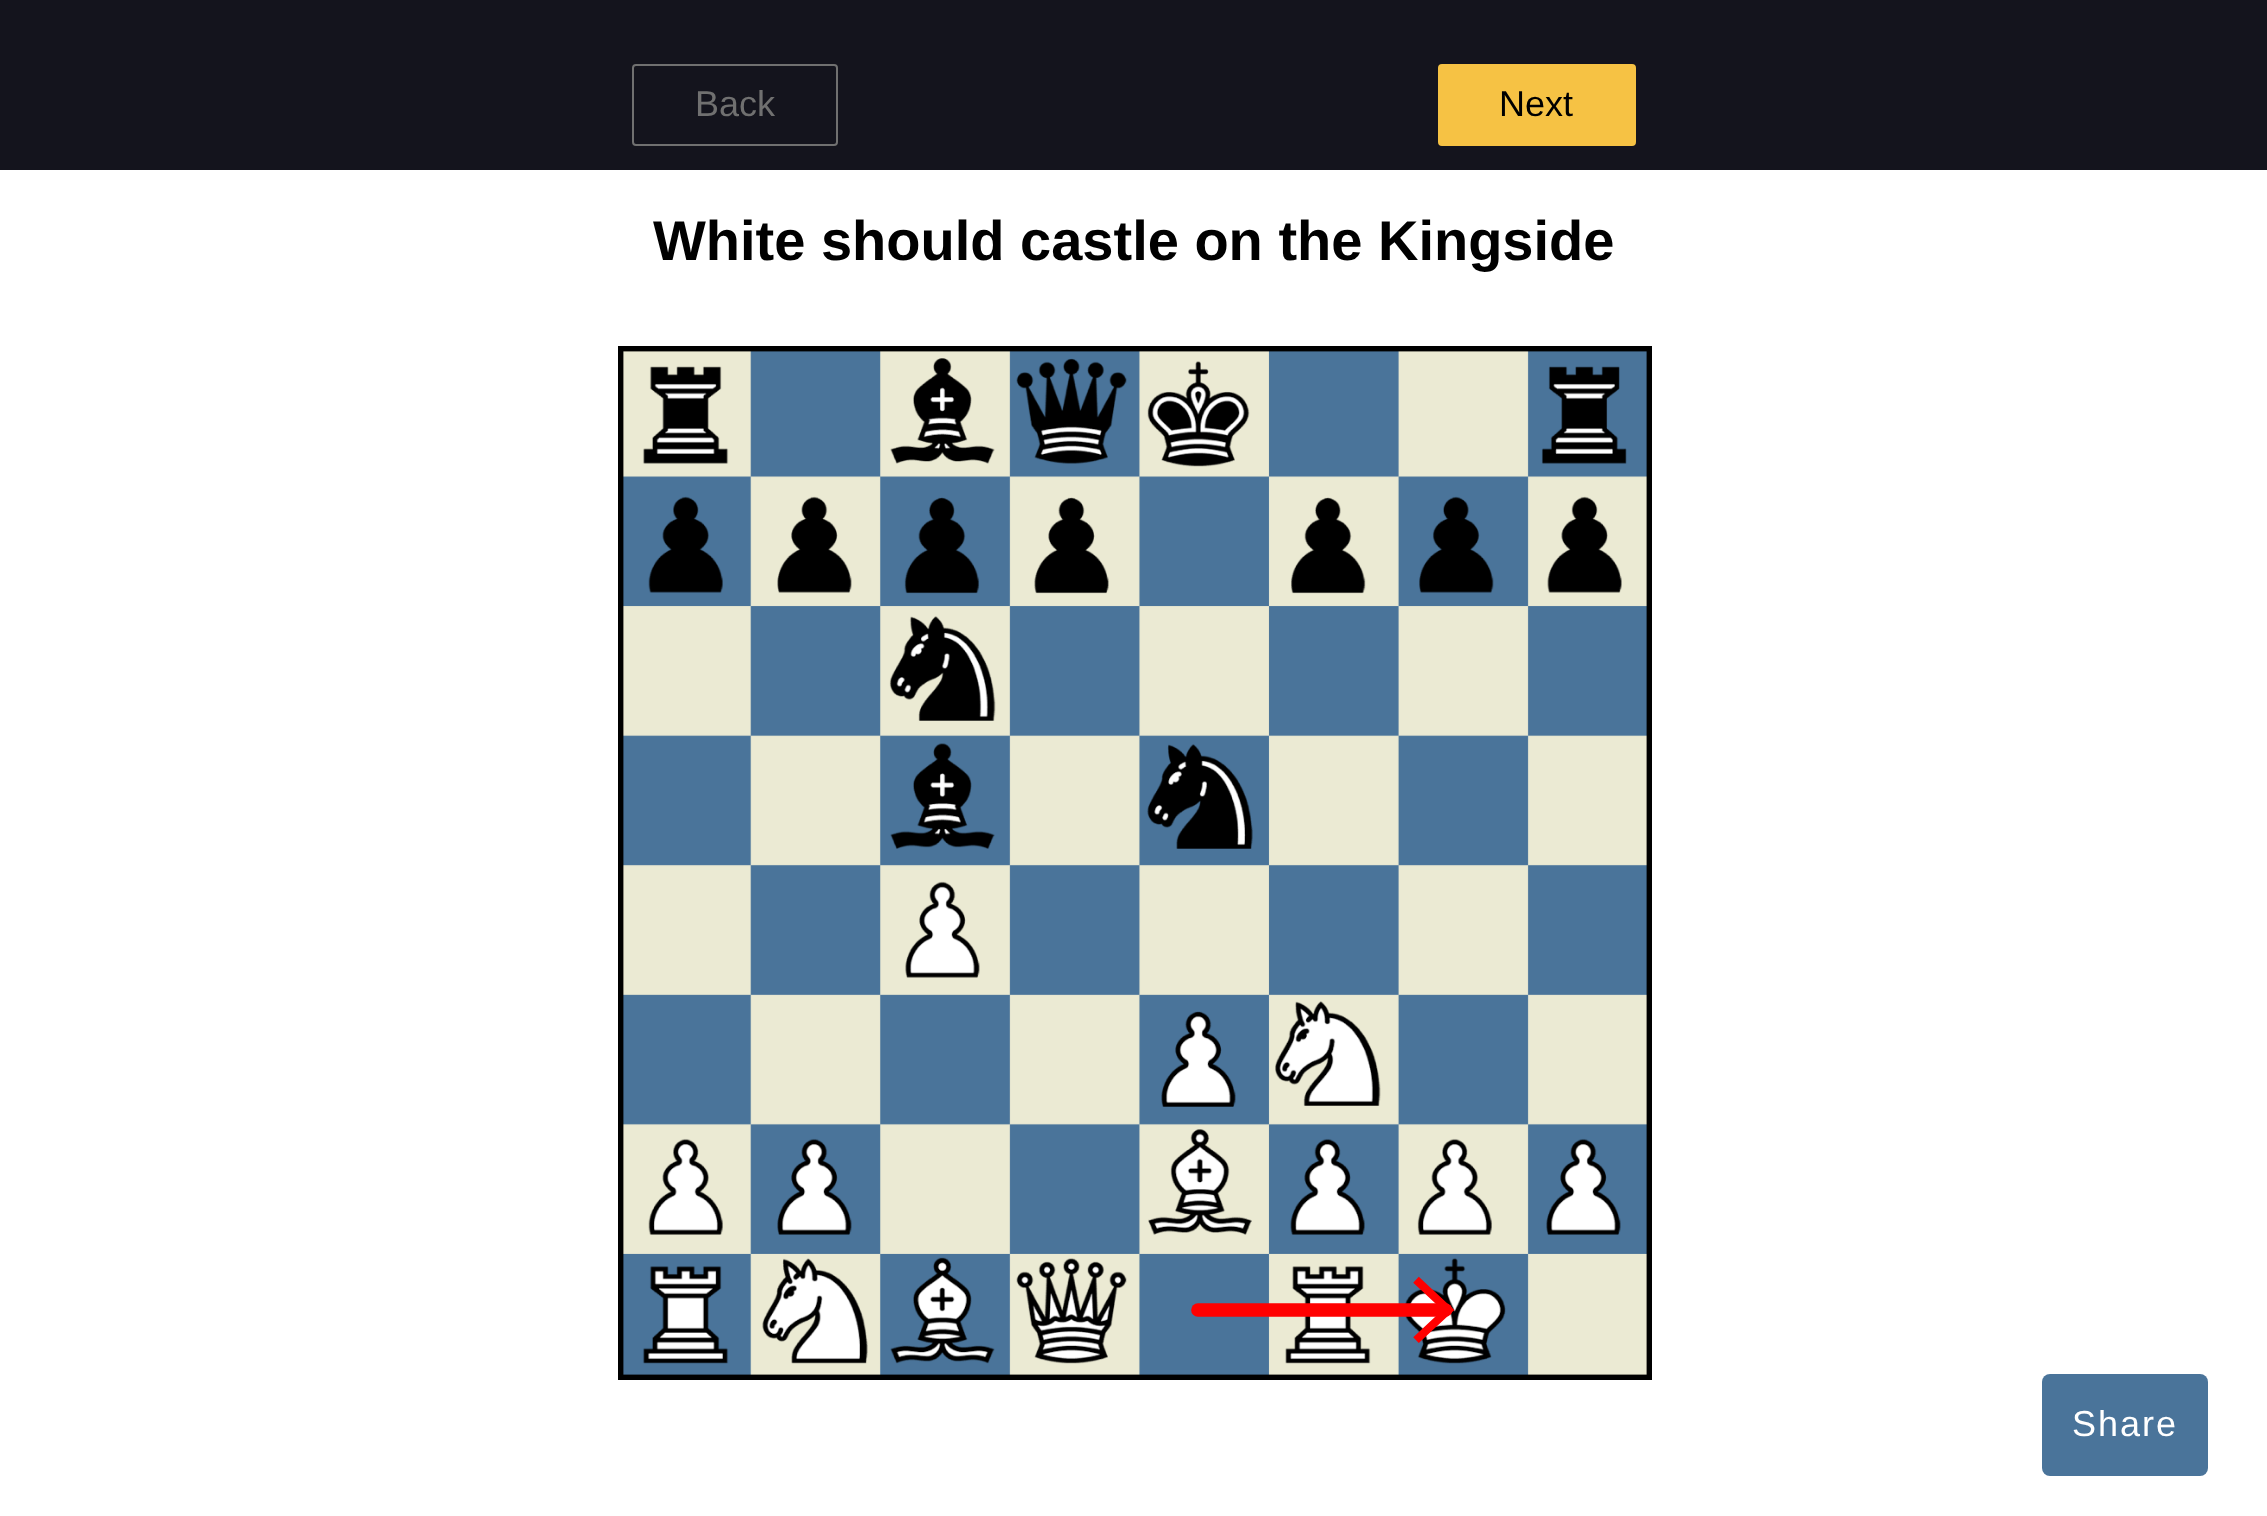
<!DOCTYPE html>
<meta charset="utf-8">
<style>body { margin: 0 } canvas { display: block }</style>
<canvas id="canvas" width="2267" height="1516"></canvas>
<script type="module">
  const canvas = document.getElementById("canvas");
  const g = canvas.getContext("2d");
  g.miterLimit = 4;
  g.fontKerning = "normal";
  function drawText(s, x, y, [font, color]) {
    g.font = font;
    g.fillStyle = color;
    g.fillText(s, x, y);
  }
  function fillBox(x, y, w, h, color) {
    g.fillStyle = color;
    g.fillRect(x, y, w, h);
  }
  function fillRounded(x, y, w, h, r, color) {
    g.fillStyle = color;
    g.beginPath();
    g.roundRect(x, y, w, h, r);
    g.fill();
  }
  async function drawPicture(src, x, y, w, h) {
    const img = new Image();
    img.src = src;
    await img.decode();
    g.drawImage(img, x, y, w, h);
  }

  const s1 = ["36px Liberation Sans", "#707070"];
  const s2 = ["36px Liberation Sans", "#000000"];
  const s3 = ["bold 56px Liberation Sans", "#000000"];
  const s4 = ["36px Liberation Sans", "#FFFFFF"];

  fillBox(0, 0, 2267, 1516, "#FFFFFF");
  fillBox(0, 0, 2267, 170, "#14141D");
  g.beginPath();
  g.roundRect(633, 65, 204, 80, 3);
  g.strokeStyle = "#707070";
  g.lineWidth = 2;
  g.stroke();
  drawText("Back", 695, 116, s1);
  g.fillStyle = "#F6C244";
  g.beginPath();
  g.roundRect(1439, 65, 196, 80, 3);
  g.fill();
  g.strokeStyle = "#F6C244";
  g.stroke();
  drawText("Next", 1499, 116, s2);
  drawText("White should castle on the Kingside", 653, 260, s3);
  await drawPicture("pic1.png", 618, 346, 1034, 1034);
  fillRounded(2042, 1374, 166, 102, 8, "#4A749A");
  g.letterSpacing = "2px";
  drawText("Share", 2072, 1436, s4);
</script>
